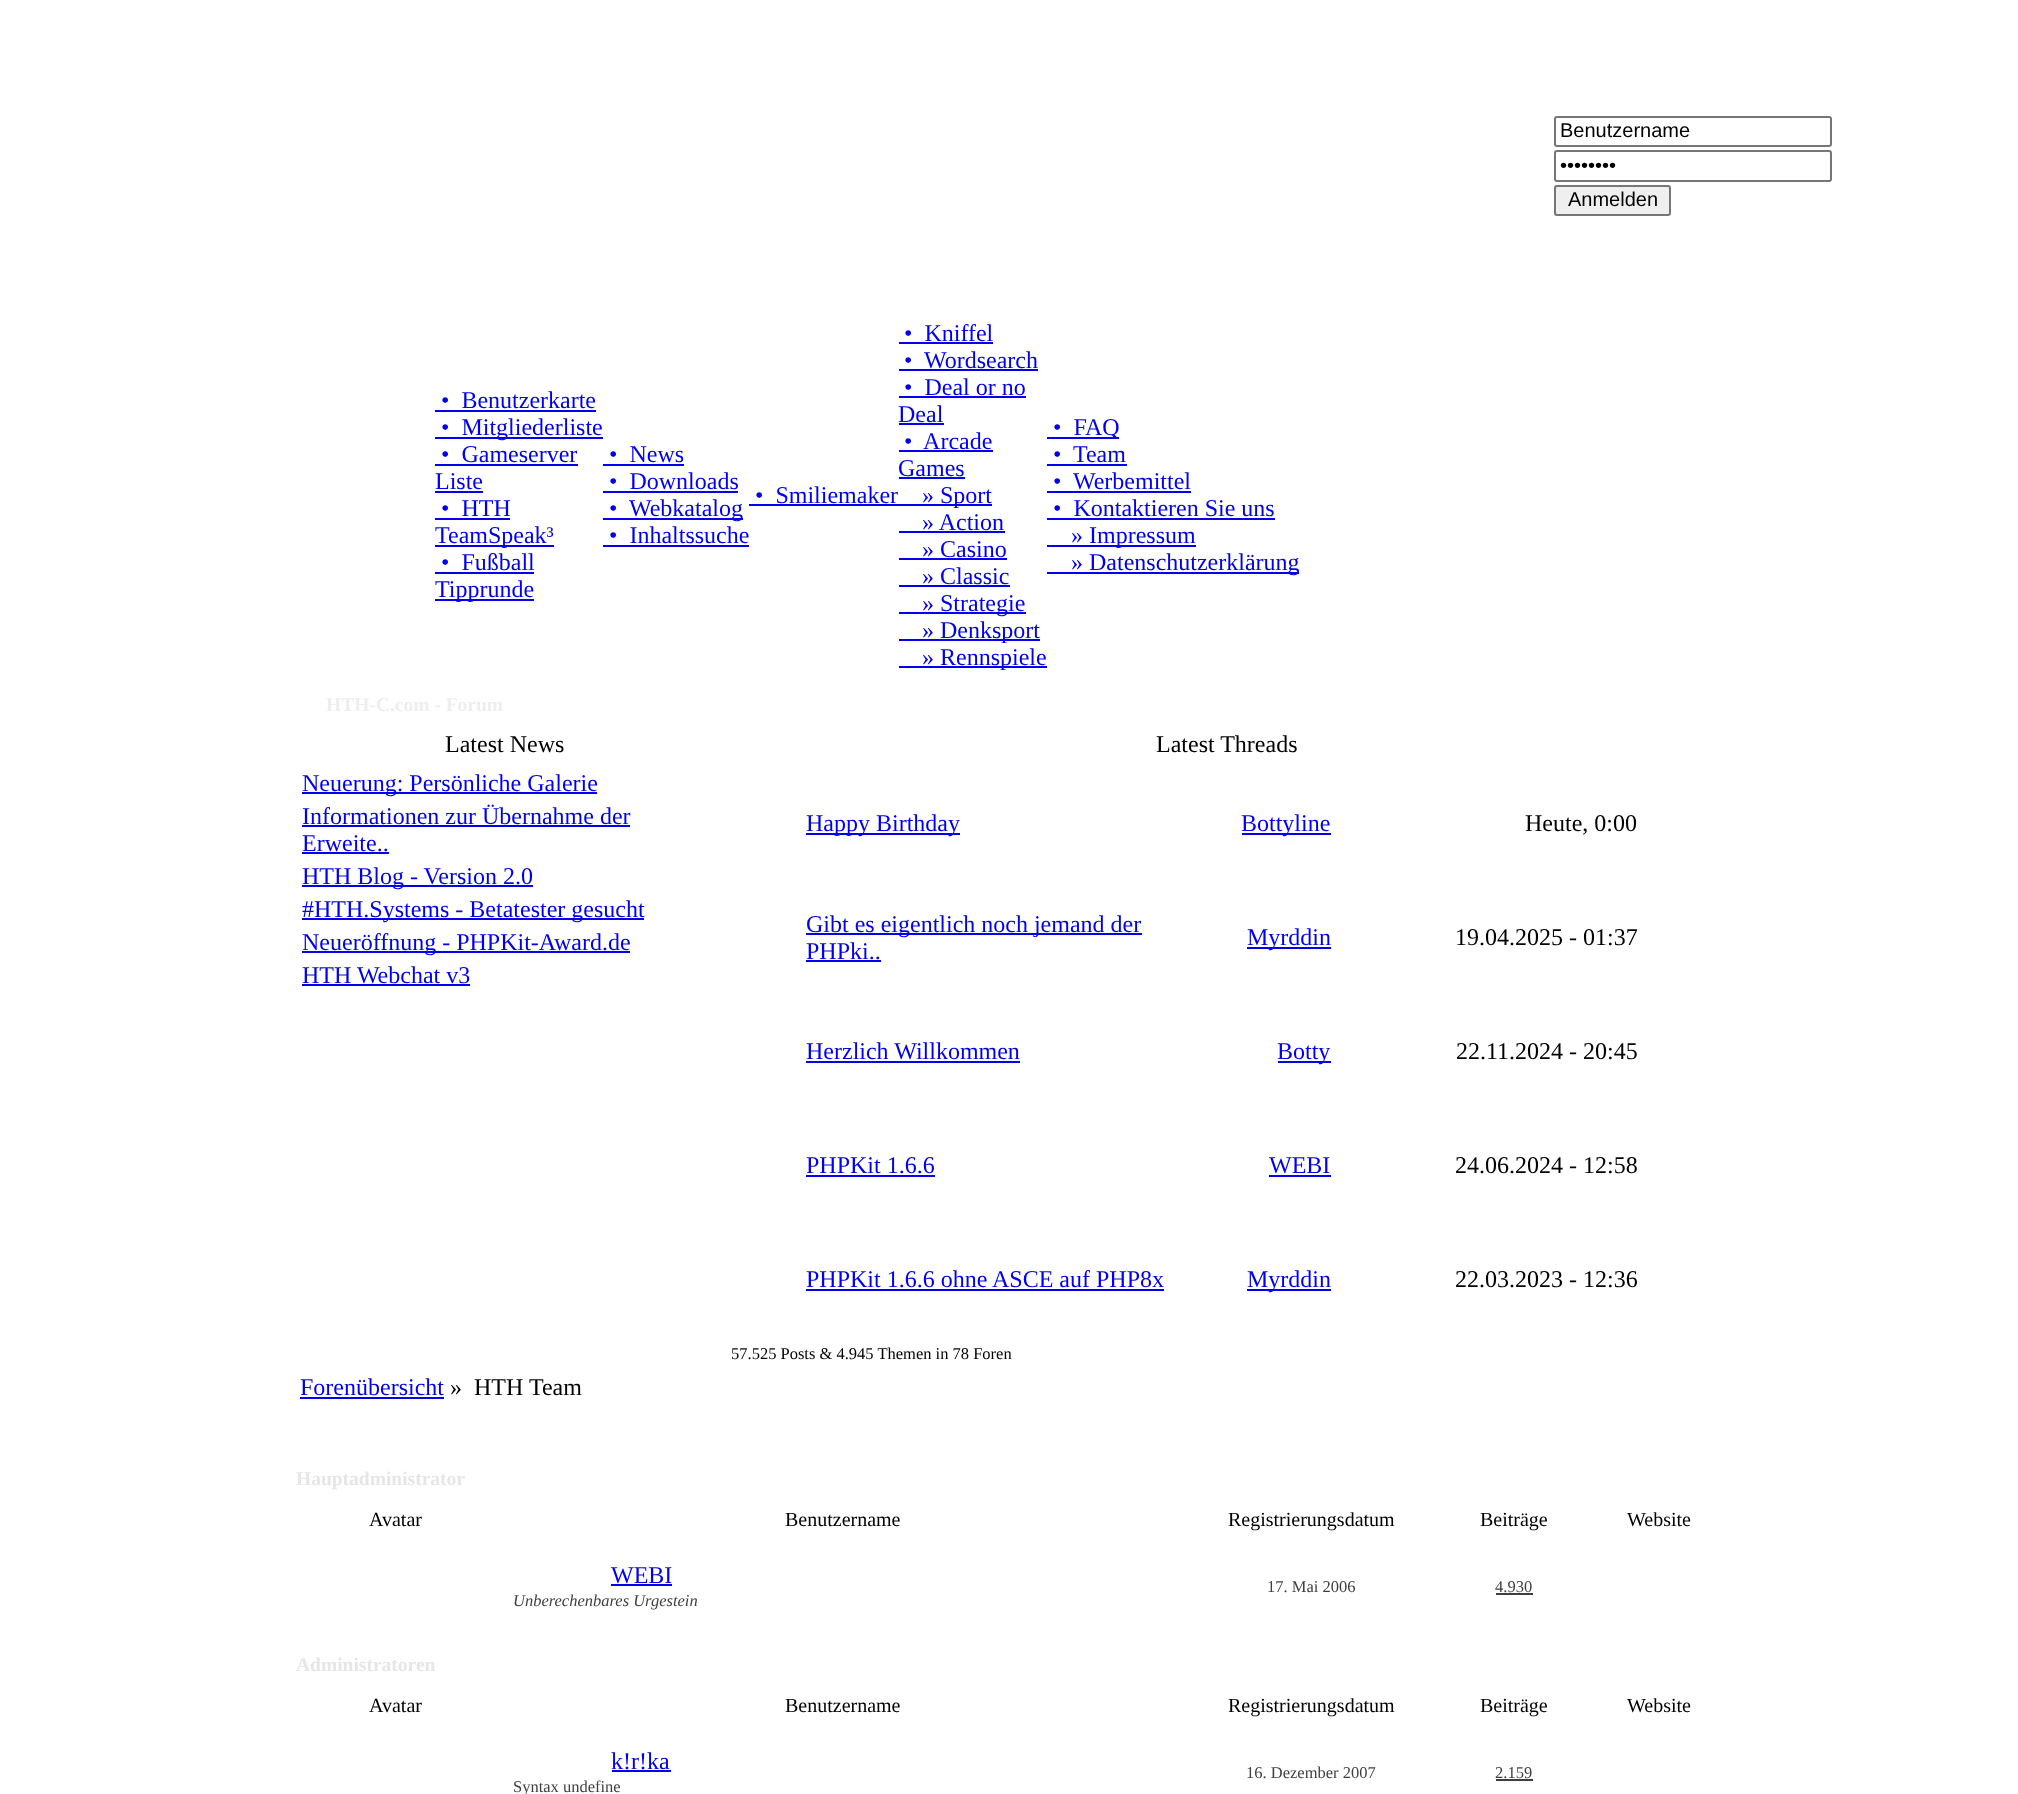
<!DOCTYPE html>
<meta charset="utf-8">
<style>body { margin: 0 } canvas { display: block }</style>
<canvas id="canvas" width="2018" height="1794"></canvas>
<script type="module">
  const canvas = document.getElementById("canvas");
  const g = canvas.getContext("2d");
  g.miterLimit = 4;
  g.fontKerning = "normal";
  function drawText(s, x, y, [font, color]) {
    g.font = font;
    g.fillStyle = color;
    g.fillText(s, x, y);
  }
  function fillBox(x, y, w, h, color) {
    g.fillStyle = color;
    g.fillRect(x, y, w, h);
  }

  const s1 = ["20px Liberation Sans", "#000000"];
  const s2 = ["24px Liberation Serif", "#0000EE"];
  const s3 = ["bold 19.5px Liberation Serif", "#EEEEEE"];
  const s4 = ["24px Liberation Serif", "#000000"];
  const s5 = ["16.5px Liberation Serif", "#000000"];
  const s6 = ["bold 19.5px Liberation Serif", "#E6E6E6"];
  const s7 = ["20px Liberation Serif", "#000000"];
  const s8 = ["italic 16.5px Liberation Serif", "#3F3F3F"];
  const s9 = ["16.5px Liberation Serif", "#3F3F3F"];

  fillBox(0, 0, 2018, 1794, "#FFFFFF");
  g.beginPath();
  g.roundRect(1555, 117, 276, 29, 2);
  g.strokeStyle = "#767676";
  g.lineWidth = 2;
  g.stroke();
  drawText("Benutzername", 1560, 137, s1);
  g.beginPath();
  g.roundRect(1555, 151, 276, 30, 2);
  g.stroke();
  drawText("••••••••", 1560, 172, s1);
  g.fillStyle = "#EFEFEF";
  g.beginPath();
  g.roundRect(1555, 186, 115, 29, 2);
  g.fill();
  g.stroke();
  drawText("Anmelden", 1568, 206, s1);
  drawText("•  Benutzerkarte", 441, 408, s2);
  fillBox(435, 410, 161, 2, "#0000EE");
  fillBox(435, 437, 168, 2, "#0000EE");
  drawText("•  Mitgliederliste", 441, 435, s2);
  drawText("•  Gameserver", 441, 462, s2);
  fillBox(435, 464, 143, 2, "#0000EE");
  drawText("Liste", 435, 489, s2);
  fillBox(435, 491, 48, 2, "#0000EE");
  drawText("•  HTH", 441, 516, s2);
  fillBox(435, 518, 75, 2, "#0000EE");
  fillBox(435, 545, 119, 2, "#0000EE");
  drawText("TeamSpeak³", 435, 543, s2);
  drawText("•  Fußball", 441, 570, s2);
  fillBox(435, 572, 99, 2, "#0000EE");
  fillBox(435, 599, 99, 2, "#0000EE");
  drawText("Tipprunde", 435, 597, s2);
  drawText("•  News", 609, 462, s2);
  fillBox(603, 464, 81, 2, "#0000EE");
  drawText("•  Downloads", 609, 489, s2);
  fillBox(603, 491, 135, 2, "#0000EE");
  fillBox(603, 518, 140, 2, "#0000EE");
  drawText("•  Webkatalog", 609, 516, s2);
  drawText("•  Inhaltssuche", 609, 543, s2);
  fillBox(603, 545, 146, 2, "#0000EE");
  drawText("•  Smiliemaker", 755, 503, s2);
  fillBox(749, 504, 243, 2, "#0000EE");
  drawText("•  Kniffel", 904, 341, s2);
  fillBox(899, 342, 94, 2, "#0000EE");
  drawText("•  Wordsearch", 904, 368, s2);
  fillBox(899, 369, 139, 2, "#0000EE");
  drawText("•  Deal or no", 904, 395, s2);
  fillBox(899, 396, 127, 2, "#0000EE");
  drawText("Deal", 898, 422, s2);
  fillBox(899, 423, 45, 2, "#0000EE");
  drawText("•  Arcade", 904, 449, s2);
  fillBox(899, 450, 94, 2, "#0000EE");
  drawText("Games", 898, 476, s2);
  fillBox(899, 477, 66, 2, "#0000EE");
  drawText("» Sport", 922, 503, s2);
  drawText("» Action", 922, 530, s2);
  fillBox(899, 531, 106, 2, "#0000EE");
  drawText("» Casino", 922, 557, s2);
  fillBox(899, 558, 108, 2, "#0000EE");
  drawText("» Classic", 922, 584, s2);
  fillBox(899, 585, 111, 2, "#0000EE");
  fillBox(899, 612, 127, 2, "#0000EE");
  drawText("» Strategie", 922, 611, s2);
  fillBox(899, 639, 141, 2, "#0000EE");
  drawText("» Denksport", 922, 638, s2);
  fillBox(899, 666, 148, 2, "#0000EE");
  drawText("» Rennspiele", 922, 665, s2);
  fillBox(1047, 437, 72, 2, "#0000EE");
  drawText("•  FAQ", 1053, 435, s2);
  drawText("•  Team", 1053, 462, s2);
  fillBox(1047, 464, 80, 2, "#0000EE");
  drawText("•  Werbemittel", 1053, 489, s2);
  fillBox(1047, 491, 144, 2, "#0000EE");
  drawText("•  Kontaktieren Sie uns", 1053, 516, s2);
  fillBox(1047, 518, 228, 2, "#0000EE");
  fillBox(1047, 545, 149, 2, "#0000EE");
  drawText("» Impressum", 1071, 543, s2);
  fillBox(1047, 572, 252, 2, "#0000EE");
  drawText("» Datenschutzerklärung", 1071, 570, s2);
  drawText("HTH-C.com - Forum", 326, 711, s3);
  drawText("Latest News", 445, 752, s4);
  drawText("Latest Threads", 1156, 752, s4);
  fillBox(302, 792, 295, 2, "#0000EE");
  drawText("Neuerung: Persönliche Galerie", 302, 791, s2);
  drawText("Informationen zur Übernahme der", 302, 824, s2);
  fillBox(302, 825, 328, 2, "#0000EE");
  drawText("Erweite..", 302, 851, s2);
  fillBox(302, 852, 87, 2, "#0000EE");
  fillBox(302, 885, 231, 2, "#0000EE");
  drawText("HTH Blog - Version 2.0", 302, 884, s2);
  fillBox(302, 918, 342, 2, "#0000EE");
  drawText("#HTH.Systems - Betatester gesucht", 302, 917, s2);
  fillBox(302, 951, 328, 2, "#0000EE");
  drawText("Neueröffnung - PHPKit-Award.de", 302, 950, s2);
  drawText("HTH Webchat v3", 302, 983, s2);
  fillBox(302, 984, 168, 2, "#0000EE");
  fillBox(806, 833, 154, 2, "#0000EE");
  drawText("Happy Birthday", 806, 831, s2);
  fillBox(1242, 833, 89, 2, "#0000EE");
  drawText("Bottyline", 1241, 831, s2);
  drawText("Heute, 0:00", 1525, 831, s4);
  fillBox(806, 933, 336, 2, "#0000EE");
  drawText("Gibt es eigentlich noch jemand der", 806, 932, s2);
  drawText("PHPki..", 806, 959, s2);
  fillBox(806, 960, 75, 2, "#0000EE");
  fillBox(1247, 947, 84, 2, "#0000EE");
  drawText("Myrddin", 1247, 945, s2);
  drawText("19.04.2025 - 01:37", 1455, 945, s4);
  drawText("Herzlich Willkommen", 806, 1059, s2);
  fillBox(806, 1061, 214, 2, "#0000EE");
  fillBox(1278, 1061, 53, 2, "#0000EE");
  drawText("Botty", 1277, 1059, s2);
  drawText("22.11.2024 - 20:45", 1456, 1059, s4);
  drawText("PHPKit 1.6.6", 806, 1173, s2);
  fillBox(806, 1175, 129, 2, "#0000EE");
  drawText("WEBI", 1269, 1173, s2);
  fillBox(1269, 1175, 62, 2, "#0000EE");
  drawText("24.06.2024 - 12:58", 1455, 1173, s4);
  drawText("PHPKit 1.6.6 ohne ASCE auf PHP8x", 806, 1287, s2);
  fillBox(806, 1289, 358, 2, "#0000EE");
  fillBox(1247, 1289, 84, 2, "#0000EE");
  drawText("Myrddin", 1247, 1287, s2);
  drawText("22.03.2023 - 12:36", 1455, 1287, s4);
  drawText("57.525 Posts & 4.945 Themen in 78 Foren", 731, 1359, s5);
  drawText("Forenübersicht", 300, 1395, s2);
  fillBox(300, 1397, 144, 2, "#0000EE");
  drawText("»", 450, 1395, s4);
  drawText("HTH Team", 474, 1395, s4);
  drawText("Hauptadministrator", 296, 1485, s6);
  drawText("Avatar", 369, 1526, s7);
  drawText("Benutzername", 785, 1526, s7);
  drawText("Registrierungsdatum", 1228, 1526, s7);
  drawText("Beiträge", 1480, 1526, s7);
  drawText("Website", 1627, 1526, s7);
  drawText("WEBI", 611, 1583, s2);
  fillBox(611, 1584, 61, 2, "#0000EE");
  drawText("Unberechenbares Urgestein", 513, 1606, s8);
  drawText("17. Mai 2006", 1267, 1592, s9);
  drawText("4.930", 1495, 1592, s9);
  fillBox(1496, 1593, 37, 2, "#3F3F3F");
  drawText("Administratoren", 296, 1671, s6);
  drawText("Avatar", 369, 1712, s7);
  drawText("Benutzername", 785, 1712, s7);
  drawText("Registrierungsdatum", 1228, 1712, s7);
  drawText("Beiträge", 1480, 1712, s7);
  drawText("Website", 1627, 1712, s7);
  drawText("k!r!ka", 611, 1769, s2);
  fillBox(612, 1770, 59, 2, "#0000EE");
  drawText("Syntax undefine", 513, 1792, s9);
  drawText("16. Dezember 2007", 1246, 1778, s9);
  drawText("2.159", 1495, 1778, s9);
  fillBox(1496, 1779, 37, 2, "#3F3F3F");
</script>
